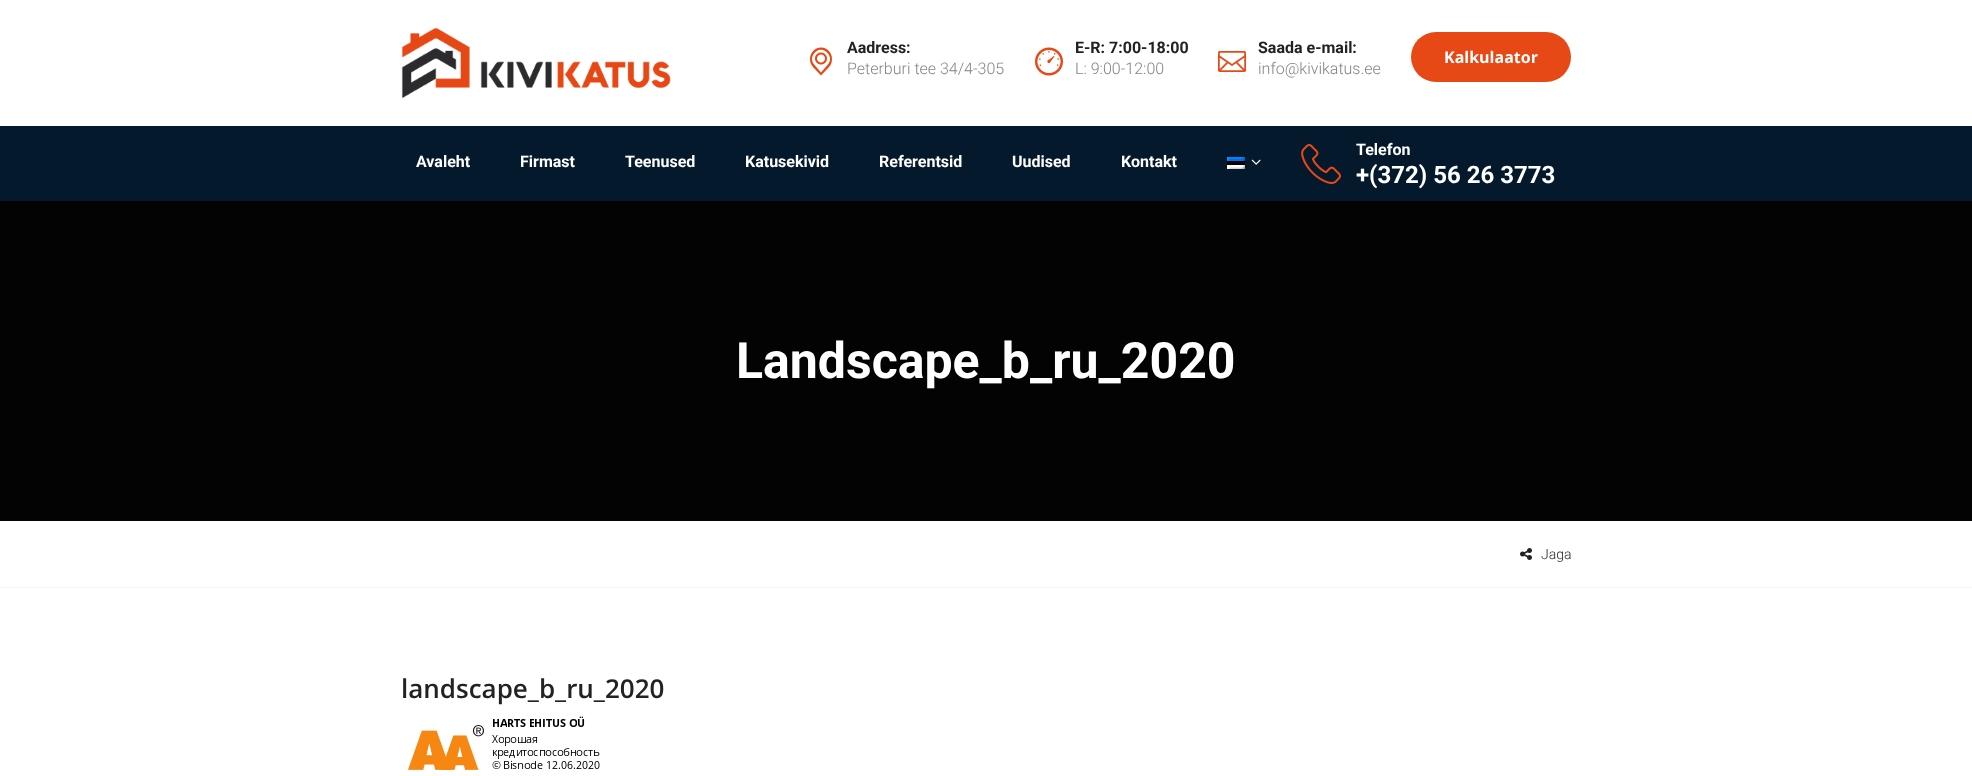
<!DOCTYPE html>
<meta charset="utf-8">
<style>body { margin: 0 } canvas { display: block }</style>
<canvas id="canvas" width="1972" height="776"></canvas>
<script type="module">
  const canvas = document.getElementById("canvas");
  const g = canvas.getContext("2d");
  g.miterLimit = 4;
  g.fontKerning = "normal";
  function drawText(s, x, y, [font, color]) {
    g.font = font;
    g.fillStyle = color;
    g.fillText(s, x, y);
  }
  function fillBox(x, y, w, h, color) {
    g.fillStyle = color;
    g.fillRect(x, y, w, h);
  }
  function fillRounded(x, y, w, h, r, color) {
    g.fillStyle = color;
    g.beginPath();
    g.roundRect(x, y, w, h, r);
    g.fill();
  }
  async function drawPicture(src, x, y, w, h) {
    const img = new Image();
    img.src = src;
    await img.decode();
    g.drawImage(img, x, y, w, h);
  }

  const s1 = ["bold 16px Roboto", "#222222"];
  const s2 = ["300 16px Roboto", "#848484"];
  const s3 = ["bold 16px Open Sans", "#FFFFFF"];
  const s4 = ["bold 16px Roboto", "#FFFFFF"];
  const s5 = ["bold 24px Roboto", "#FFFFFF"];
  const s6 = ["bold 50px Roboto", "#FFFFFF"];
  const s7 = ["300 14px Roboto", "#222222"];
  const s8 = ["600 26px Open Sans", "#222222"];

  fillBox(0, 0, 1972, 776, "#FFFFFF");
  await drawPicture("pic1.png", 401, 27, 270, 72);
  await drawPicture("pic2.png", 810, 47, 22, 29);
  drawText("Aadress:", 847, 53, s1);
  drawText("Peterburi tee 34/4-305", 847, 74, s2);
  await drawPicture("pic3.png", 1035, 47, 28, 29);
  drawText("E-R: 7:00-18:00", 1075, 53, s1);
  drawText("L: 9:00-12:00", 1075, 74, s2);
  await drawPicture("pic4.png", 1218, 51, 28, 21);
  drawText("Saada e-mail:", 1258, 53, s1);
  drawText("info@kivikatus.ee", 1258, 74, s2);
  fillRounded(1411, 32, 160, 50, 25, "#E64816");
  drawText("Kalkulaator", 1444, 63, s3);
  fillBox(0, 126, 1972, 75, "#04192B");
  drawText("Avaleht", 416, 167, s4);
  drawText("Firmast", 520, 167, s4);
  drawText("Teenused", 625, 167, s4);
  drawText("Katusekivid", 745, 167, s4);
  drawText("Referentsid", 879, 167, s4);
  drawText("Uudised", 1012, 167, s4);
  drawText("Kontakt", 1121, 167, s4);
  await drawPicture("pic5.png", 1227, 157, 18, 12);
  await drawPicture("pic6.png", 1251, 159, 10, 6);
  await drawPicture("pic7.png", 1301, 144, 40, 40);
  drawText("Telefon", 1356, 155, s4);
  drawText("+(372) 56 26 3773", 1356, 183, s5);
  fillBox(0, 201, 1972, 320, "#030303");
  drawText("Landscape_b_ru_2020", 736, 378, s6);
  fillBox(0, 587, 1972, 1, "#F4F4F4");
  await drawPicture("pic8.png", 1520, 548, 12, 12);
  drawText("Jaga", 1541, 559, s7);
  drawText("landscape_b_ru_2020", 401, 698, s8);
  await drawPicture("pic9.png", 408, 716, 192, 54);
</script>
